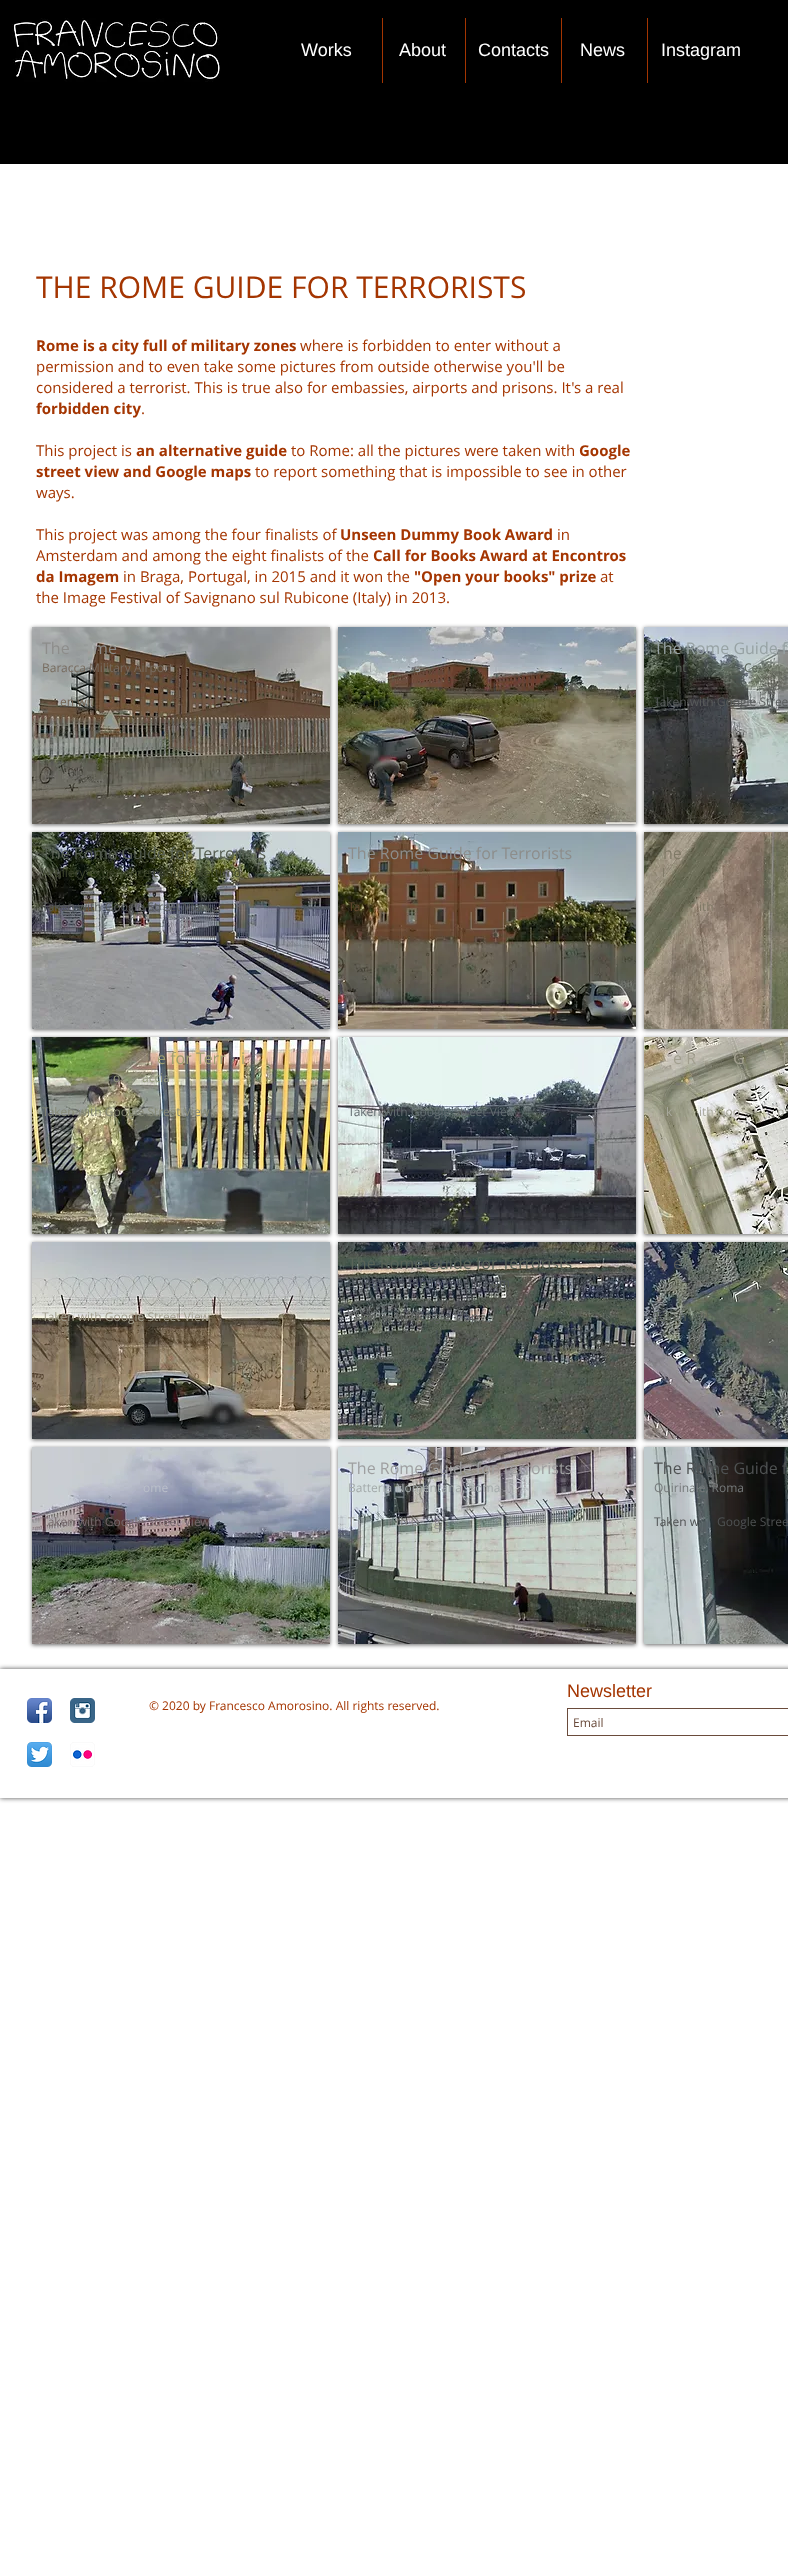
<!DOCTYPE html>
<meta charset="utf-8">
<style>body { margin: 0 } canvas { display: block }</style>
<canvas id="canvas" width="788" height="2551"></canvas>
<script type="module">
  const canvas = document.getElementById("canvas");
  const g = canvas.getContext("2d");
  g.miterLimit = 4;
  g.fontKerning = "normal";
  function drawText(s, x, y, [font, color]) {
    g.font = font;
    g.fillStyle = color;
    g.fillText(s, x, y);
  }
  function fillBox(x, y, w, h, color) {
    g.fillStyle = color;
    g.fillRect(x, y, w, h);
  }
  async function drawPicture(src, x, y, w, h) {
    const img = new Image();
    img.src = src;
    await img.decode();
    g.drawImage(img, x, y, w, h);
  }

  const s1 = ["18px Liberation Sans", "#FFFFFF"];
  const s2 = ["30px Open Sans", "#A43501"];
  const s3 = ["bold 15px Open Sans", "#A43501"];
  const s4 = ["15px Open Sans", "#A43501"];
  const s5 = ["16px Open Sans", "#8D8D8B"];
  const s6 = ["12px Open Sans", "#786C60"];
  const s7 = ["12px Open Sans", "#726353"];
  const s8 = ["12px Open Sans", "#A3AAAA"];
  const s9 = ["12px Open Sans", "#464925"];
  const s10 = ["16px Open Sans", "#97A2A4"];
  const s11 = ["12px Open Sans", "#5A6459"];
  const s12 = ["12px Open Sans", "#585B5B"];
  const s13 = ["16px Open Sans", "#555D51"];
  const s14 = ["12px Open Sans", "#3F462E"];
  const s15 = ["12px Open Sans", "#664B32"];
  const s16 = ["16px Open Sans", "#7F7966"];
  const s17 = ["12px Open Sans", "#7F7966"];
  const s18 = ["16px Open Sans", "#9D9D70"];
  const s19 = ["12px Open Sans", "#949A7E"];
  const s20 = ["12px Open Sans", "#868976"];
  const s21 = ["12px Open Sans", "#626C70"];
  const s22 = ["16px Open Sans", "#A29F8F"];
  const s23 = ["12px Open Sans", "#A8A89C"];
  const s24 = ["12px Open Sans", "#A29F8F"];
  const s25 = ["16px Open Sans", "#5A6459"];
  const s26 = ["12px Open Sans", "#4F555C"];
  const s27 = ["12px Open Sans", "#626664"];
  const s28 = ["16px Open Sans", "#585B5B"];
  const s29 = ["12px Open Sans", "#BABFCA"];
  const s30 = ["12px Open Sans", "#76696C"];
  const s31 = ["16px Open Sans", "#9E9FA0"];
  const s32 = ["12px Open Sans", "#8D8D8B"];
  const s33 = ["16px Open Sans", "#4F5253"];
  const s34 = ["12px Open Sans", "#75797A"];
  const s35 = ["12px Open Sans", "#4F5253"];
  const s36 = ["12px Open Sans", "#A43501"];
  const s37 = ["18px Liberation Sans", "#A43501"];
  const s38 = ["12px Open Sans", "#6A4B3B"];

  fillBox(0, 0, 788, 2551, "#FFFFFF");
  fillBox(0, 0, 788, 164, "#000000");
  await drawPicture("pic1.png", 12, 18, 208, 64);
  drawText("Works", 301, 56, s1);
  fillBox(382, 18, 1, 65, "#A43501");
  drawText("About", 399, 56, s1);
  fillBox(465, 18, 1, 65, "#A43501");
  drawText("Contacts", 478, 56, s1);
  fillBox(561, 18, 1, 65, "#A43501");
  drawText("News", 580, 56, s1);
  fillBox(647, 18, 1, 65, "#A43501");
  drawText("Instagram", 661, 56, s1);
  drawText("THE ROME GUIDE FOR TERRORISTS", 36, 298, s2);
  drawText("Rome is a city full of military zones", 36, 351, s3);
  drawText("where is forbidden to enter without a", 300, 351, s4);
  drawText("permission and to even take some pictures from outside otherwise you'll be", 36, 372, s4);
  drawText("considered a terrorist. This is true also for embassies, airports and prisons. It's a real", 36, 393, s4);
  drawText("forbidden city", 36, 414, s3);
  drawText(".", 141, 414, s4);
  drawText("This project is", 36, 456, s4);
  drawText("an alternative guide", 136, 456, s3);
  drawText("to Rome: all the pictures were taken with", 291, 456, s4);
  drawText("Google", 579, 456, s3);
  drawText("street view and Google maps", 36, 477, s3);
  drawText("to report something that is impossible to see in other", 255, 477, s4);
  drawText("ways.", 36, 498, s4);
  drawText("This project was among the four finalists of", 36, 540, s4);
  drawText("Unseen Dummy Book Award", 340, 540, s3);
  drawText("in", 557, 540, s4);
  drawText("Amsterdam and among the eight finalists of the", 36, 561, s4);
  drawText("Call for Books Award at Encontros", 373, 561, s3);
  drawText("da Imagem", 36, 582, s3);
  drawText("in Braga, Portugal, in 2015 and it won the", 123, 582, s4);
  drawText("\"Open your books\" prize", 414, 582, s3);
  drawText("at", 600, 582, s4);
  drawText("the Image Festival of Savignano sul Rubicone (Italy) in 2013.", 36, 603, s4);
  g.fillStyle = "rgba(0, 0, 0, 0.6)";
  g.filter = "blur(2px)";
  g.beginPath();
  g.rect(32, 628, 298, 197);
  g.fill();
  g.filter = "none";
  await drawPicture("pic2.png", 32, 627, 298, 197);
  drawText("The", 42, 654, s5);
  drawText("me", 93, 654, s5);
  drawText("Baracca Military Airport", 42, 672, s6);
  drawText("en wit", 60, 706, s7);
  g.fillStyle = "rgba(0, 0, 0, 0.6)";
  g.filter = "blur(2px)";
  g.beginPath();
  g.rect(338, 628, 298, 197);
  g.fill();
  g.filter = "none";
  await drawPicture("pic3.png", 338, 627, 298, 197);
  drawText("i", 369, 672, s8);
  drawText("s", 415, 672, s8);
  drawText("n", 373, 706, s9);
  g.fillStyle = "rgba(0, 0, 0, 0.6)";
  g.filter = "blur(2px)";
  g.beginPath();
  g.rect(644, 628, 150, 197);
  g.fill();
  g.filter = "none";
  await drawPicture("pic4.png", 644, 627, 144, 197);
  drawText("The Rome Guide f", 654, 654, s10);
  drawText("nt", 675, 672, s11);
  drawText("Ce", 744, 672, s11);
  drawText("Taken with Google Stree", 654, 706, s12);
  g.fillStyle = "rgba(0, 0, 0, 0.6)";
  g.filter = "blur(2px)";
  g.beginPath();
  g.rect(32, 833, 298, 197);
  g.fill();
  g.filter = "none";
  await drawPicture("pic5.png", 32, 832, 298, 197);
  drawText("The Rome Guide for Terrorists", 42, 859, s13);
  drawText("Artillery experience center, Nettuno", 42, 877, s14);
  drawText("Taken with Google Street View", 42, 911, s12);
  g.fillStyle = "rgba(0, 0, 0, 0.6)";
  g.filter = "blur(2px)";
  g.beginPath();
  g.rect(338, 833, 298, 197);
  g.fill();
  g.filter = "none";
  await drawPicture("pic6.png", 338, 832, 298, 197);
  drawText("The Rome Guide for Terrorists", 348, 859, s5);
  drawText("Ta", 348, 911, s15);
  g.fillStyle = "rgba(0, 0, 0, 0.6)";
  g.filter = "blur(2px)";
  g.beginPath();
  g.rect(644, 833, 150, 197);
  g.fill();
  g.filter = "none";
  await drawPicture("pic7.png", 644, 832, 144, 197);
  drawText("he", 663, 859, s16);
  drawText("l", 662, 877, s17);
  drawText("ith", 699, 911, s17);
  g.fillStyle = "rgba(0, 0, 0, 0.6)";
  g.filter = "blur(2px)";
  g.beginPath();
  g.rect(32, 1038, 298, 197);
  g.fill();
  g.filter = "none";
  await drawPicture("pic8.png", 32, 1037, 298, 197);
  drawText("e for Terr", 157, 1064, s18);
  drawText("i", 241, 1064, s18);
  drawText("o", 113, 1082, s19);
  drawText("accia", 142, 1082, s19);
  drawText("Taken with Google Street View", 42, 1116, s20);
  g.fillStyle = "rgba(0, 0, 0, 0.6)";
  g.filter = "blur(2px)";
  g.beginPath();
  g.rect(338, 1038, 298, 197);
  g.fill();
  g.filter = "none";
  await drawPicture("pic9.png", 338, 1037, 298, 197);
  drawText("Taken with Google Street View", 348, 1116, s21);
  g.fillStyle = "rgba(0, 0, 0, 0.6)";
  g.filter = "blur(2px)";
  g.beginPath();
  g.rect(644, 1038, 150, 197);
  g.fill();
  g.filter = "none";
  await drawPicture("pic10.png", 644, 1037, 144, 197);
  drawText("e R", 673, 1064, s22);
  drawText("G", 733, 1064, s22);
  drawText("f", 782, 1064, s22);
  drawText("k", 666, 1116, s23);
  drawText("ith Goo", 699, 1116, s23);
  drawText("p", 777, 1116, s23);
  g.fillStyle = "rgba(0, 0, 0, 0.6)";
  g.filter = "blur(2px)";
  g.beginPath();
  g.rect(32, 1243, 298, 197);
  g.fill();
  g.filter = "none";
  await drawPicture("pic11.png", 32, 1242, 298, 197);
  drawText("Taken with Google Street View", 42, 1321, s24);
  g.fillStyle = "rgba(0, 0, 0, 0.6)";
  g.filter = "blur(2px)";
  g.beginPath();
  g.rect(338, 1243, 298, 197);
  g.fill();
  g.filter = "none";
  await drawPicture("pic12.png", 338, 1242, 298, 197);
  drawText("The Rome Guide for Terrorists", 348, 1269, s25);
  drawText("8' Reparto Rifornimenti, Rom", 348, 1287, s26);
  drawText("Taken with Google Maps", 348, 1321, s27);
  g.fillStyle = "rgba(0, 0, 0, 0.6)";
  g.filter = "blur(2px)";
  g.beginPath();
  g.rect(644, 1243, 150, 197);
  g.fill();
  g.filter = "none";
  await drawPicture("pic13.png", 644, 1242, 144, 197);
  drawText("e", 673, 1269, s28);
  drawText("Taken with", 654, 1321, s11);
  g.fillStyle = "rgba(0, 0, 0, 0.6)";
  g.filter = "blur(2px)";
  g.beginPath();
  g.rect(32, 1448, 298, 197);
  g.fill();
  g.filter = "none";
  await drawPicture("pic14.png", 32, 1447, 298, 197);
  drawText("ome", 143, 1492, s29);
  drawText("Taken with Google Street View", 42, 1526, s30);
  g.fillStyle = "rgba(0, 0, 0, 0.6)";
  g.filter = "blur(2px)";
  g.beginPath();
  g.rect(338, 1448, 298, 197);
  g.fill();
  g.filter = "none";
  await drawPicture("pic15.png", 338, 1447, 298, 197);
  drawText("The Rome Guide for Terrorists", 348, 1474, s31);
  drawText("Batteria Nomentana, Roma", 348, 1492, s8);
  drawText("T", 348, 1526, s32);
  drawText("th G", 396, 1526, s32);
  drawText("g", 434, 1526, s32);
  g.fillStyle = "rgba(0, 0, 0, 0.6)";
  g.filter = "blur(2px)";
  g.beginPath();
  g.rect(644, 1448, 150, 197);
  g.fill();
  g.filter = "none";
  await drawPicture("pic16.png", 644, 1447, 144, 197);
  drawText("The Rome Guide f", 654, 1474, s33);
  drawText("Quirinale, Roma", 654, 1492, s34);
  drawText("Taken w", 654, 1526, s35);
  drawText("Google Stree", 717, 1526, s35);
  g.save();
  g.beginPath();
  g.moveTo(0, 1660);
  g.lineTo(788, 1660);
  g.lineTo(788, 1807);
  g.lineTo(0, 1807);
  g.closePath();
  g.moveTo(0, 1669);
  g.lineTo(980, 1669);
  g.lineTo(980, 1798);
  g.lineTo(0, 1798);
  g.closePath();
  g.clip("evenodd");
  g.fillStyle = "rgba(0, 0, 0, 0.7)";
  g.filter = "blur(2.5px)";
  g.beginPath();
  g.rect(0, 1669, 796, 129);
  g.fill();
  g.filter = "none";
  g.restore();
  await drawPicture("pic17.png", 27, 1698, 25, 25);
  await drawPicture("pic18.png", 70, 1698, 25, 25);
  drawText("© 2020 by Francesco Amorosino. All rights reserved.", 149, 1710, s36);
  drawText("Newsletter", 567, 1697, s37);
  g.strokeStyle = "#6A4B3B";
  g.strokeRect(567.5, 1708.5, 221, 27);
  drawText("Email", 573, 1727, s38);
  await drawPicture("pic19.png", 27, 1742, 25, 25);
  await drawPicture("pic20.png", 70, 1742, 25, 25);
</script>
